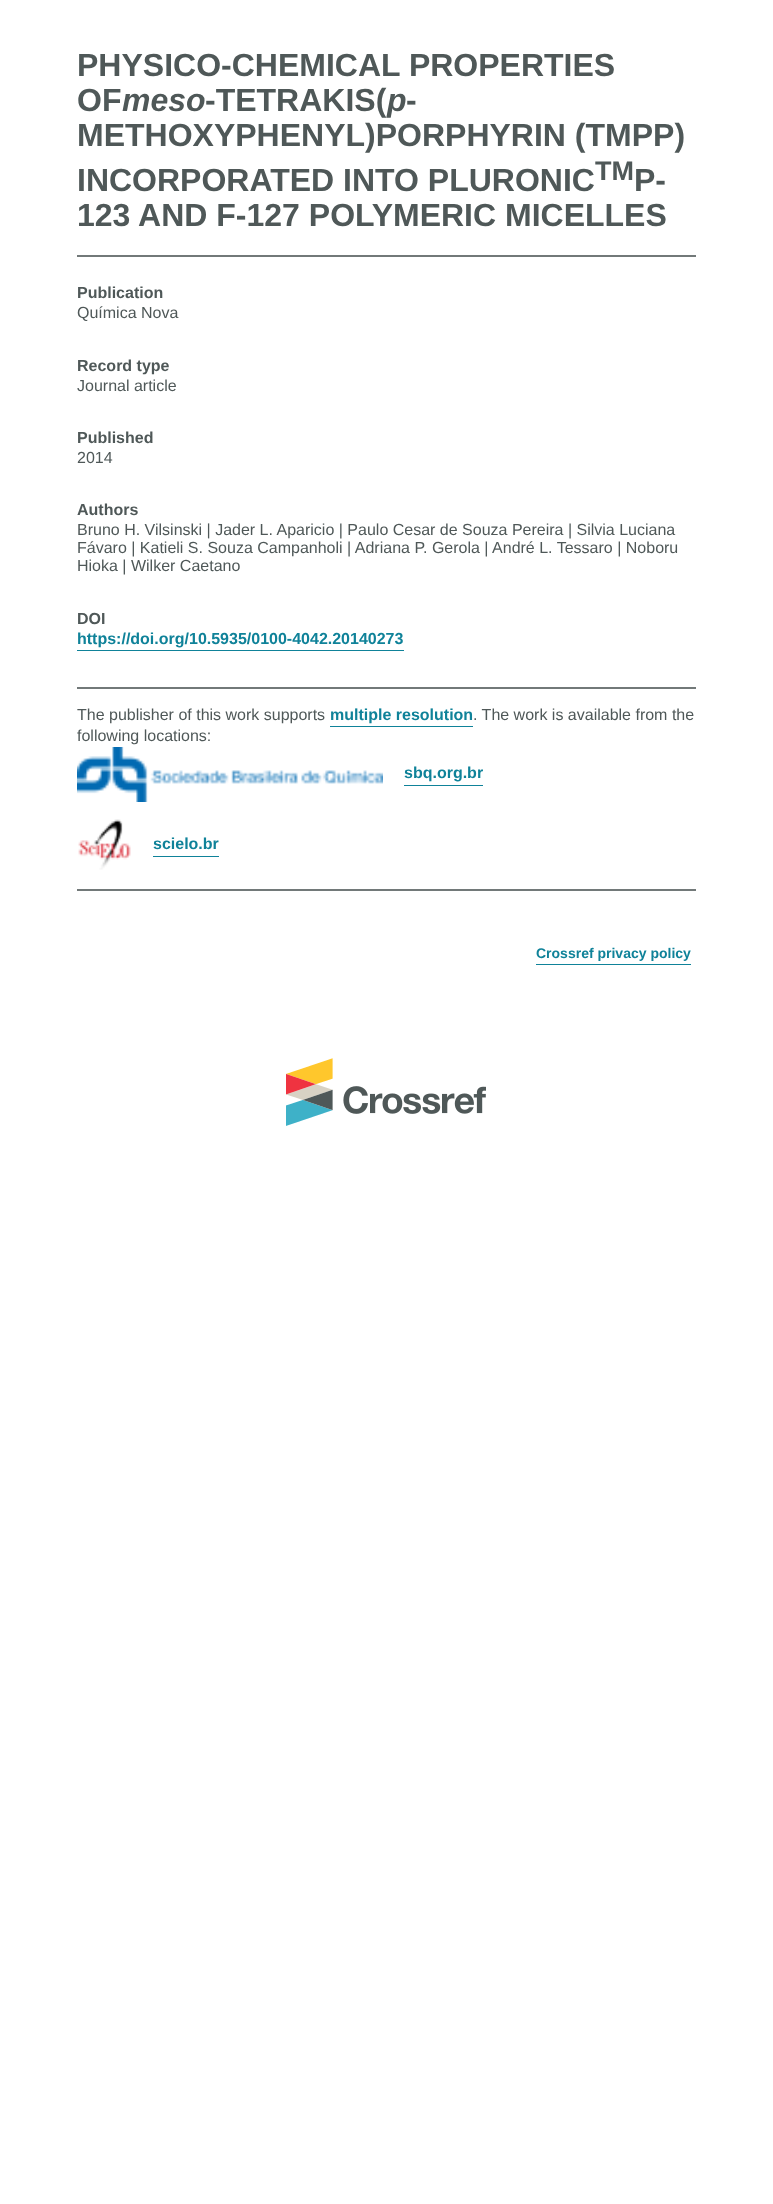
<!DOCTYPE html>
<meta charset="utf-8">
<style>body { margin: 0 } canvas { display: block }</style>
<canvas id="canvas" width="773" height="2204"></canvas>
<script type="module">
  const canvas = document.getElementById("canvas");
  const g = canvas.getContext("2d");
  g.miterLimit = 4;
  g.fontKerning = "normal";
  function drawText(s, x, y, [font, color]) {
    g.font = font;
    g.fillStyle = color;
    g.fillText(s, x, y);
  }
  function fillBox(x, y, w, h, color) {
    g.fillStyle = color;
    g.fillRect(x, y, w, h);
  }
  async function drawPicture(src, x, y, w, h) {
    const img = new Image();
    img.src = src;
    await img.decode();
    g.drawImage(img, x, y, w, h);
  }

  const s1 = ["bold 32px Liberation Sans", "#4F5858"];
  const s2 = ["italic bold 32px Liberation Sans", "#4F5858"];
  const s3 = ["bold 27px Liberation Sans", "#4F5858"];
  const s4 = ["bold 16px Liberation Sans", "#4F5858"];
  const s5 = ["16px Liberation Sans", "#4F5858"];
  const s6 = ["bold 16px Liberation Sans", "#0F8299"];
  const s7 = ["bold 14px Liberation Sans", "#0F8299"];

  fillBox(0, 0, 773, 2204, "#FFFFFF");
  drawText("PHYSICO-CHEMICAL PROPERTIES", 77, 76, s1);
  drawText("OF", 77, 111, s1);
  drawText("meso", 122, 111, s2);
  drawText("-TETRAKIS(", 205, 111, s1);
  drawText("p", 387, 111, s2);
  drawText("-", 406, 111, s1);
  drawText("METHOXYPHENYL)PORPHYRIN (TMPP)", 77, 146, s1);
  drawText("INCORPORATED INTO PLURONIC", 77, 191, s1);
  drawText("TM", 595, 180, s3);
  drawText("P-", 634, 191, s1);
  drawText("123 AND F-127 POLYMERIC MICELLES", 77, 226, s1);
  fillBox(77, 255, 619, 2, "#727979");
  drawText("Publication", 77, 298, s4);
  drawText("Química Nova", 77, 318, s5);
  drawText("Record type", 77, 371, s4);
  drawText("Journal article", 77, 391, s5);
  drawText("Published", 77, 443, s4);
  drawText("2014", 77, 463, s5);
  drawText("Authors", 77, 515, s4);
  drawText("Bruno H. Vilsinski | Jader L. Aparicio | Paulo Cesar de Souza Pereira | Silvia Luciana", 77, 535, s5);
  drawText("Fávaro | Katieli S. Souza Campanholi | Adriana P. Gerola | André L. Tessaro | Noboru", 77, 553, s5);
  drawText("Hioka | Wilker Caetano", 77, 571, s5);
  drawText("DOI", 77, 624, s4);
  drawText("https://doi.org/10.5935/0100-4042.20140273", 77, 644, s6);
  fillBox(77, 650, 327, 1, "#0F8299");
  fillBox(77, 687, 619, 2, "#727979");
  drawText("The publisher of this work supports", 77, 720, s5);
  drawText("multiple resolution", 330, 720, s6);
  fillBox(330, 726, 143, 1, "#0F8299");
  drawText(". The work is available from the", 473, 720, s5);
  drawText("following locations:", 77, 741, s5);
  await drawPicture("pic1.png", 77, 747, 306, 55);
  drawText("sbq.org.br", 404, 778, s6);
  fillBox(404, 785, 79, 1, "#0F8299");
  await drawPicture("pic2.png", 78, 819, 53, 51);
  drawText("scielo.br", 153, 849, s6);
  fillBox(153, 856, 66, 1, "#0F8299");
  fillBox(77, 889, 619, 2, "#727979");
  drawText("Crossref privacy policy", 536, 958, s7);
  fillBox(536, 964, 155, 1, "#0F8299");
  await drawPicture("pic3.png", 286, 1058, 200, 68);
</script>
